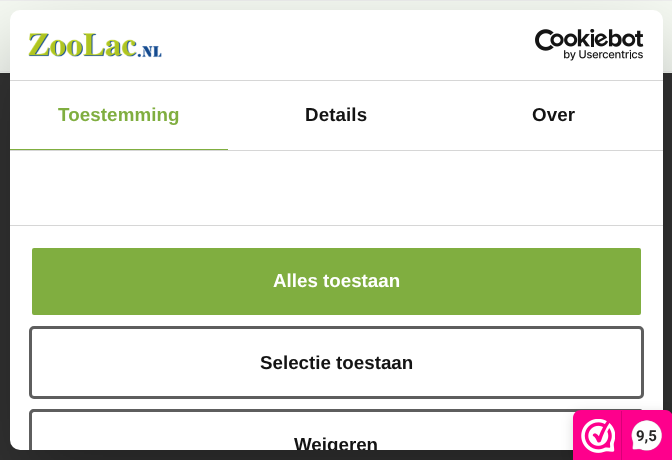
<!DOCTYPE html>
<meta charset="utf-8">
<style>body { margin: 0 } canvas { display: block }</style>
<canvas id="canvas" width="672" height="460"></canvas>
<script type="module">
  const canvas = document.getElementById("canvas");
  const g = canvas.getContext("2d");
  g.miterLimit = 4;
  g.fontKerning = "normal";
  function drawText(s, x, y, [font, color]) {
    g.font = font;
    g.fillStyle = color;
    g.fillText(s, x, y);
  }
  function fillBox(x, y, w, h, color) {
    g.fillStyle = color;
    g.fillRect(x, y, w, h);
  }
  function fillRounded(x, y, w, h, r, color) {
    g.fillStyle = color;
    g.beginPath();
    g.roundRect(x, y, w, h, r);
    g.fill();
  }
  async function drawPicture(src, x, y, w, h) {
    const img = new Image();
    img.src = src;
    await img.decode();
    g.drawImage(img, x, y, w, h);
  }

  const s1 = ["bold 18.75px Liberation Sans", "#80AE40"];
  const s2 = ["bold 18.75px Liberation Sans", "#141414"];
  const s3 = ["bold 18.75px Liberation Sans", "#FFFFFF"];
  const s4 = ["bold 15px Roboto", "#272626"];

  fillBox(0, 0, 672, 460, "#333333");
  g.fillStyle = "rgba(0, 0, 0, 0.2)";
  g.filter = "blur(3px)";
  g.beginPath();
  g.rect(1, 1, 670, 70);
  g.fill();
  g.filter = "none";
  fillBox(0, 1, 672, 72, "#F6FAF3");
  fillBox(0, 0, 672, 1, "#EFEFEF");
  fillBox(0, 71, 672, 1, "#EFEFEF");
  g.fillStyle = "rgba(0, 0, 0, 0.3)";
  g.filter = "blur(42.5px)";
  g.beginPath();
  g.roundRect(10, 50, 653, 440, 10);
  g.fill();
  g.filter = "none";
  fillRounded(10, 10, 653, 440, 10, "#FFFFFF");
  fillBox(10, 80, 653, 1, "#D6D6D6");
  await drawPicture("pic1.png", 28, 33, 134, 25);
  await drawPicture("pic2.png", 535, 29, 109, 32);
  fillBox(10, 150, 653, 1, "#D6D6D6");
  fillBox(10, 149, 218, 1, "#80AE40");
  g.letterSpacing = "0.1px";
  drawText("Toestemming", 58, 121, s1);
  drawText("Details", 305, 121, s2);
  drawText("Over", 532, 121, s2);
  fillBox(10, 225, 653, 1, "#D6D6D6");
  g.fillStyle = "#80AE40";
  g.beginPath();
  g.roundRect(30.5, 246.5, 612, 70, 3.5);
  g.fill();
  g.strokeStyle = "#FFFFFF";
  g.lineWidth = 3;
  g.stroke();
  g.letterSpacing = "0px";
  drawText("Alles toestaan", 273, 287, s3);
  g.beginPath();
  g.roundRect(30.5, 327.5, 612, 70, 3.5);
  g.strokeStyle = "#5E5E5E";
  g.stroke();
  drawText("Selectie toestaan", 260, 369, s2);
  g.fillStyle = "#5E5E5E";
  g.beginPath();
  g.moveTo(34, 409);
  g.bezierCurveTo(31, 409, 29, 411, 29, 414);
  g.lineTo(29, 450);
  g.lineTo(32, 450);
  g.lineTo(32, 414);
  g.bezierCurveTo(32, 413, 33, 412, 34, 412);
  g.lineTo(639, 412);
  g.bezierCurveTo(640, 412, 641, 413, 641, 414);
  g.lineTo(641, 450);
  g.lineTo(644, 450);
  g.lineTo(644, 414);
  g.bezierCurveTo(644, 411, 642, 409, 639, 409);
  g.closePath();
  g.fill();
  g.save();
  g.beginPath();
  g.roundRect(10, 10, 653, 440, 10);
  g.clip();
  drawText("Weigeren", 294, 451, s2);
  g.restore();
  g.fillStyle = "rgba(0, 0, 0, 0.15)";
  g.filter = "blur(6px)";
  g.beginPath();
  g.roundRect(573, 413, 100, 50, 8);
  g.fill();
  g.filter = "none";
  g.fillStyle = "#FE008C";
  g.beginPath();
  g.moveTo(581, 410);
  g.lineTo(665, 410);
  g.bezierCurveTo(669.5, 410, 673, 413.5, 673, 418);
  g.lineTo(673, 460);
  g.lineTo(573, 460);
  g.lineTo(573, 418);
  g.bezierCurveTo(573, 413.5, 576.5, 410, 581, 410);
  g.closePath();
  g.fill();
  await drawPicture("pic3.png", 581, 419, 34, 34);
  fillBox(621, 411, 1, 49, "#D80077");
  await drawPicture("pic4.png", 631, 420, 32, 31);
  drawText("9,5", 636, 441, s4);
</script>
